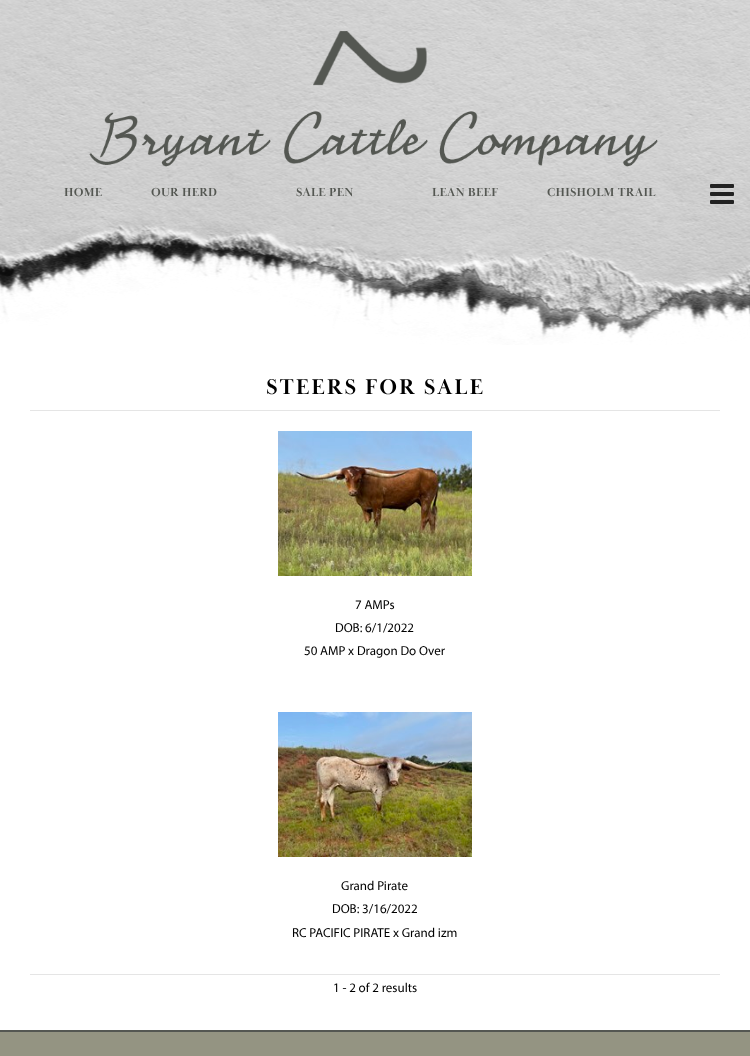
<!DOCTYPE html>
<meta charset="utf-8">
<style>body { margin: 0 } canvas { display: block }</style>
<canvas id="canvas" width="750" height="1056"></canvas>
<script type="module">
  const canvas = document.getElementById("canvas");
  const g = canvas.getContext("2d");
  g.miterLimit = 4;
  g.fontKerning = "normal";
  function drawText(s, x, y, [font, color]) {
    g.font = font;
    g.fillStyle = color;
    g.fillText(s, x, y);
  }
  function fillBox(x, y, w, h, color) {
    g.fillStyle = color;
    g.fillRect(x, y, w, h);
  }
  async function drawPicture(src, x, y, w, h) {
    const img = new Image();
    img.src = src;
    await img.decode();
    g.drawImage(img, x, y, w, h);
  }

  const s1 = ["bold 12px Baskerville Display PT", "#545752"];
  const s2 = ["bold 22px Baskerville Display PT", "#000000"];
  const s3 = ["13px Myriad", "#000000"];

  fillBox(0, 0, 750, 1056, "#FFFFFF");
  await drawPicture("pic1.png", 0, 0, 750, 345);
  await drawPicture("pic2.png", 89, 31, 569, 136);
  g.letterSpacing = "0.25px";
  drawText("HOME", 64, 196, s1);
  drawText("OUR HERD", 151, 196, s1);
  drawText("SALE PEN", 296, 196, s1);
  drawText("LEAN BEEF", 432, 196, s1);
  drawText("CHISHOLM TRAIL", 547, 196, s1);
  await drawPicture("pic3.png", 710, 184, 24, 20);
  g.letterSpacing = "2px";
  drawText("STEERS FOR SALE", 266, 394, s2);
  fillBox(30, 410, 690, 1, "#E5E5E5");
  await drawPicture("pic4.png", 278, 431, 194, 145);
  g.letterSpacing = "0px";
  drawText("7 AMPs", 355, 609, s3);
  drawText("DOB: 6/1/2022", 335, 632, s3);
  drawText("50 AMP x Dragon Do Over", 304, 655, s3);
  await drawPicture("pic5.png", 278, 712, 194, 145);
  drawText("Grand Pirate", 341, 890, s3);
  drawText("DOB: 3/16/2022", 332, 913, s3);
  drawText("RC PACIFIC PIRATE x Grand izm", 292, 937, s3);
  fillBox(30, 974, 690, 1, "#E5E5E5");
  drawText("1 - 2 of 2 results", 333, 992, s3);
  fillBox(0, 1030, 750, 2, "#545752");
  fillBox(0, 1032, 750, 24, "#949482");
</script>
